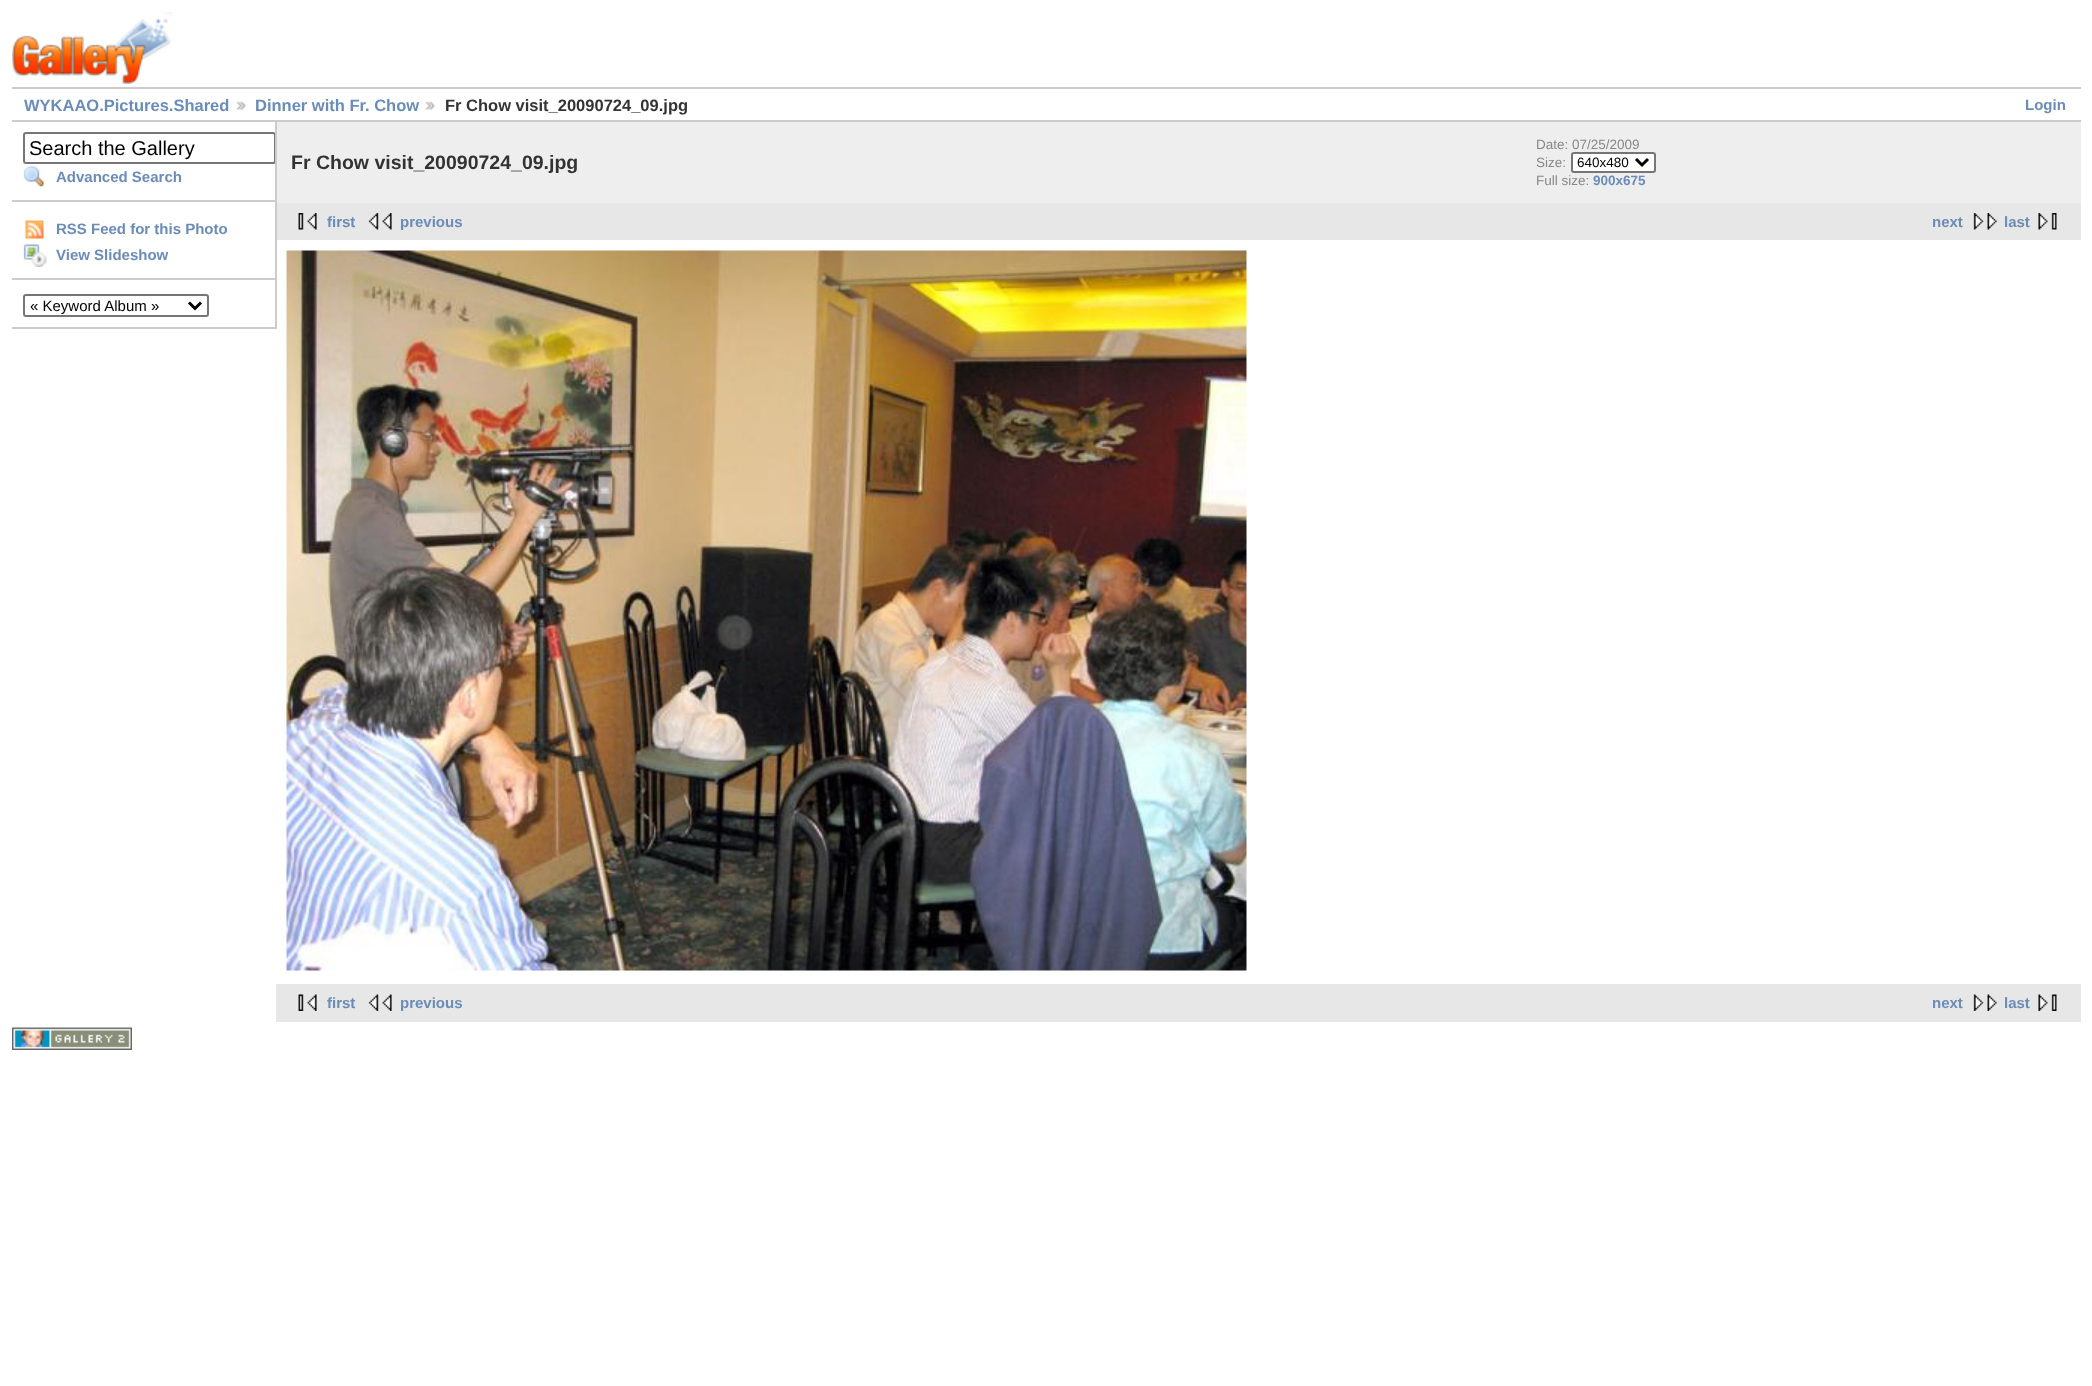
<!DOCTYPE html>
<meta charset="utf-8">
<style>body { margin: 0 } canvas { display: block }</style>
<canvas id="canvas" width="2092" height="1386"></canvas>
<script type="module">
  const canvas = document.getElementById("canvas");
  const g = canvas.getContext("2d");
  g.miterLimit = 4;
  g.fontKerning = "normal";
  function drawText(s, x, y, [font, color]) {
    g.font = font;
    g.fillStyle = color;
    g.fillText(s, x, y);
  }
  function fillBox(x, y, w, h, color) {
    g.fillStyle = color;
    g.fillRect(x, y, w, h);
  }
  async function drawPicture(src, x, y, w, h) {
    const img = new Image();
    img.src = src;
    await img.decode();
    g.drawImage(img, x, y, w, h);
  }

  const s1 = ["bold 16.5px Liberation Sans", "#6B8CB7"];
  const s2 = ["bold 16.5px Liberation Sans", "#333333"];
  const s3 = ["bold 15px Liberation Sans", "#6B8CB7"];
  const s4 = ["20px Liberation Sans", "#000000"];
  const s5 = ["15px Liberation Sans", "#000000"];
  const s6 = ["bold 19.5px Liberation Sans", "#333333"];
  const s7 = ["13.5px Liberation Sans", "#888888"];
  const s8 = ["13.5px Liberation Sans", "#000000"];
  const s9 = ["bold 13.5px Liberation Sans", "#6B8CB7"];

  fillBox(0, 0, 2092, 1386, "#FFFFFF");
  await drawPicture("pic1.png", 12, 12, 161, 72);
  fillBox(12, 87, 2069, 2, "#CCCCCC");
  fillBox(12, 120, 2069, 2, "#CCCCCC");
  drawText("WYKAAO.Pictures.Shared", 24, 111, s1);
  await drawPicture("pic2.png", 236, 101, 11, 9);
  drawText("Dinner with Fr. Chow", 255, 111, s1);
  await drawPicture("pic3.png", 425, 101, 11, 9);
  drawText("Fr Chow visit_20090724_09.jpg", 445, 111, s2);
  drawText("Login", 2025, 110, s3);
  fillBox(275, 122, 2, 207, "#CCCCCC");
  fillBox(12, 200, 263, 2, "#CCCCCC");
  g.save();
  g.beginPath();
  g.rect(12, 122, 263, 207);
  g.clip();
  g.beginPath();
  g.roundRect(24, 133, 251, 30, 2);
  g.strokeStyle = "#767676";
  g.lineWidth = 2;
  g.stroke();
  g.restore();
  drawText("Search the Gallery", 29, 155, s4);
  await drawPicture("pic4.png", 23, 166, 21, 22);
  drawText("Advanced Search", 56, 182, s3);
  fillBox(12, 278, 263, 2, "#CCCCCC");
  await drawPicture("pic5.png", 25, 220, 19, 19);
  drawText("RSS Feed for this Photo", 56, 234, s3);
  await drawPicture("pic6.png", 23, 244, 24, 23);
  drawText("View Slideshow", 56, 260, s3);
  fillBox(12, 327, 263, 2, "#CCCCCC");
  g.beginPath();
  g.roundRect(24, 295, 184, 21, 2);
  g.strokeStyle = "#767676";
  g.lineWidth = 2;
  g.stroke();
  g.beginPath();
  g.moveTo(189, 302.5);
  g.lineTo(195, 308.5);
  g.lineTo(201, 302.5);
  g.strokeStyle = "#000000";
  g.lineWidth = 3;
  g.stroke();
  drawText("« Keyword Album »", 30, 311, s5);
  fillBox(277, 122, 1804, 81, "#EEEEEE");
  drawText("Fr Chow visit_20090724_09.jpg", 291, 169, s6);
  drawText("Date: 07/25/2009", 1536, 149, s7);
  drawText("Size:", 1536, 167, s7);
  g.fillStyle = "#FFFFFF";
  g.beginPath();
  g.roundRect(1572, 153, 83, 19, 2);
  g.fill();
  g.strokeStyle = "#767676";
  g.lineWidth = 2;
  g.stroke();
  g.beginPath();
  g.moveTo(1636, 159);
  g.lineTo(1642, 165);
  g.lineTo(1648, 159);
  g.strokeStyle = "#000000";
  g.lineWidth = 3;
  g.stroke();
  drawText("640x480", 1577, 167, s8);
  drawText("Full size:", 1536, 185, s7);
  drawText("900x675", 1593, 185, s9);
  fillBox(277, 203, 1804, 37, "#E7E7E7");
  await drawPicture("pic7.png", 298, 213, 19, 17);
  drawText("first", 327, 227, s3);
  await drawPicture("pic8.png", 368, 213, 24, 17);
  drawText("previous", 400, 227, s3);
  drawText("next", 1932, 227, s3);
  await drawPicture("pic9.png", 1973, 213, 24, 17);
  drawText("last", 2004, 227, s3);
  await drawPicture("pic10.png", 2038, 213, 19, 17);
  await drawPicture("pic11.png", 286, 250, 961, 721);
  fillBox(276, 984, 1805, 38, "#E7E7E7");
  await drawPicture("pic12.png", 298, 994, 19, 17);
  drawText("first", 327, 1008, s3);
  await drawPicture("pic13.png", 368, 994, 24, 17);
  drawText("previous", 400, 1008, s3);
  drawText("next", 1932, 1008, s3);
  await drawPicture("pic14.png", 1973, 994, 24, 17);
  drawText("last", 2004, 1008, s3);
  await drawPicture("pic15.png", 2038, 994, 19, 17);
  await drawPicture("pic16.png", 12, 1027, 120, 23);
</script>
